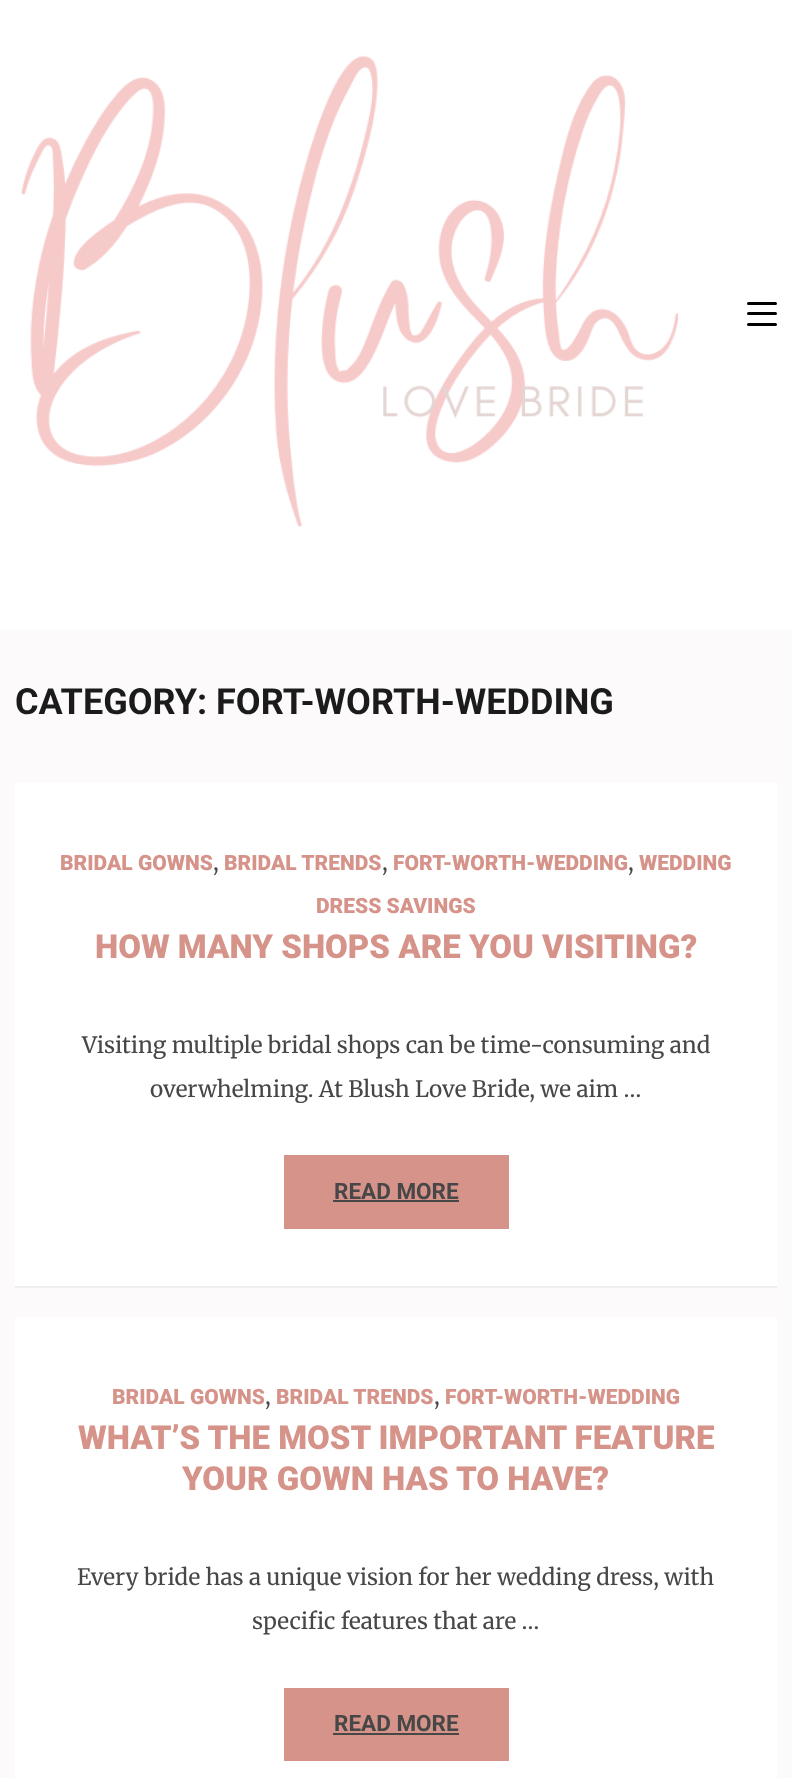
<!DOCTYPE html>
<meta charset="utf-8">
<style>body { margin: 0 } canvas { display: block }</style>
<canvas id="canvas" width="792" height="1778"></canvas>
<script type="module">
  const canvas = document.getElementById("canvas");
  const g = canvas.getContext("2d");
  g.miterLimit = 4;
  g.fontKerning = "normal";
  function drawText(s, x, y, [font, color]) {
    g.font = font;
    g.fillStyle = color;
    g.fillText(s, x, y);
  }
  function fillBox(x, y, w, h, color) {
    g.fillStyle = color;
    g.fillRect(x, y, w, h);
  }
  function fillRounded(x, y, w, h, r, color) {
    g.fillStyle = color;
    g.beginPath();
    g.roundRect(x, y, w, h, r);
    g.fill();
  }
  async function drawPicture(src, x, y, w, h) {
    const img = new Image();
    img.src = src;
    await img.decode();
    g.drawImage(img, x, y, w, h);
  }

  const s1 = ["bold 36px Roboto", "#1B1B1B"];
  const s2 = ["900 21px Roboto", "#D6938A"];
  const s3 = ["22.5px Merriweather", "#474747"];
  const s4 = ["900 33px Roboto", "#D6938A"];
  const s5 = ["bold 22.5px Roboto", "#474747"];

  fillBox(0, 0, 792, 1778, "#FCFAFB");
  fillBox(0, 0, 792, 629, "#FFFFFF");
  await drawPicture("pic1.png", 21, 55, 657, 472);
  fillRounded(747, 302, 30, 3, 1.5, "#000000");
  fillRounded(747, 312, 30, 3, 1.5, "#000000");
  fillRounded(747, 323, 30, 3, 1.5, "#000000");
  drawText("CATEGORY: FORT-WORTH-WEDDING", 15, 714, s1);
  fillBox(15, 783, 762, 503, "#FFFFFF");
  fillBox(15, 1286, 762, 2, "#EFEDEE");
  drawText("BRIDAL GOWNS", 60, 870, s2);
  drawText(",", 213, 870, s3);
  drawText("BRIDAL TRENDS", 224, 870, s2);
  drawText(",", 382, 870, s3);
  drawText("FORT-WORTH-WEDDING", 393, 870, s2);
  drawText(",", 628, 870, s3);
  drawText("WEDDING", 639, 870, s2);
  drawText("DRESS SAVINGS", 316, 913, s2);
  drawText("HOW MANY SHOPS ARE YOU VISITING?", 95, 958, s4);
  drawText("Visiting multiple bridal shops can be time-consuming and", 82, 1053, s3);
  drawText("overwhelming. At Blush Love Bride, we aim …", 150, 1097, s3);
  fillBox(284, 1155, 225, 74, "#D6938A");
  drawText("READ MORE", 334, 1199, s5);
  fillBox(333, 1200, 126, 2, "#474747");
  fillBox(15, 1317, 762, 461, "#FFFFFF");
  drawText("BRIDAL GOWNS", 112, 1404, s2);
  drawText(",", 265, 1404, s3);
  drawText("BRIDAL TRENDS", 276, 1404, s2);
  drawText(",", 434, 1404, s3);
  drawText("FORT-WORTH-WEDDING", 445, 1404, s2);
  drawText("WHAT’S THE MOST IMPORTANT FEATURE", 78, 1449, s4);
  drawText("YOUR GOWN HAS TO HAVE?", 182, 1490, s4);
  drawText("Every bride has a unique vision for her wedding dress, with", 77, 1585, s3);
  drawText("specific features that are …", 252, 1629, s3);
  fillBox(284, 1688, 225, 73, "#D6938A");
  drawText("READ MORE", 334, 1731, s5);
  fillBox(333, 1733, 126, 2, "#474747");
</script>
